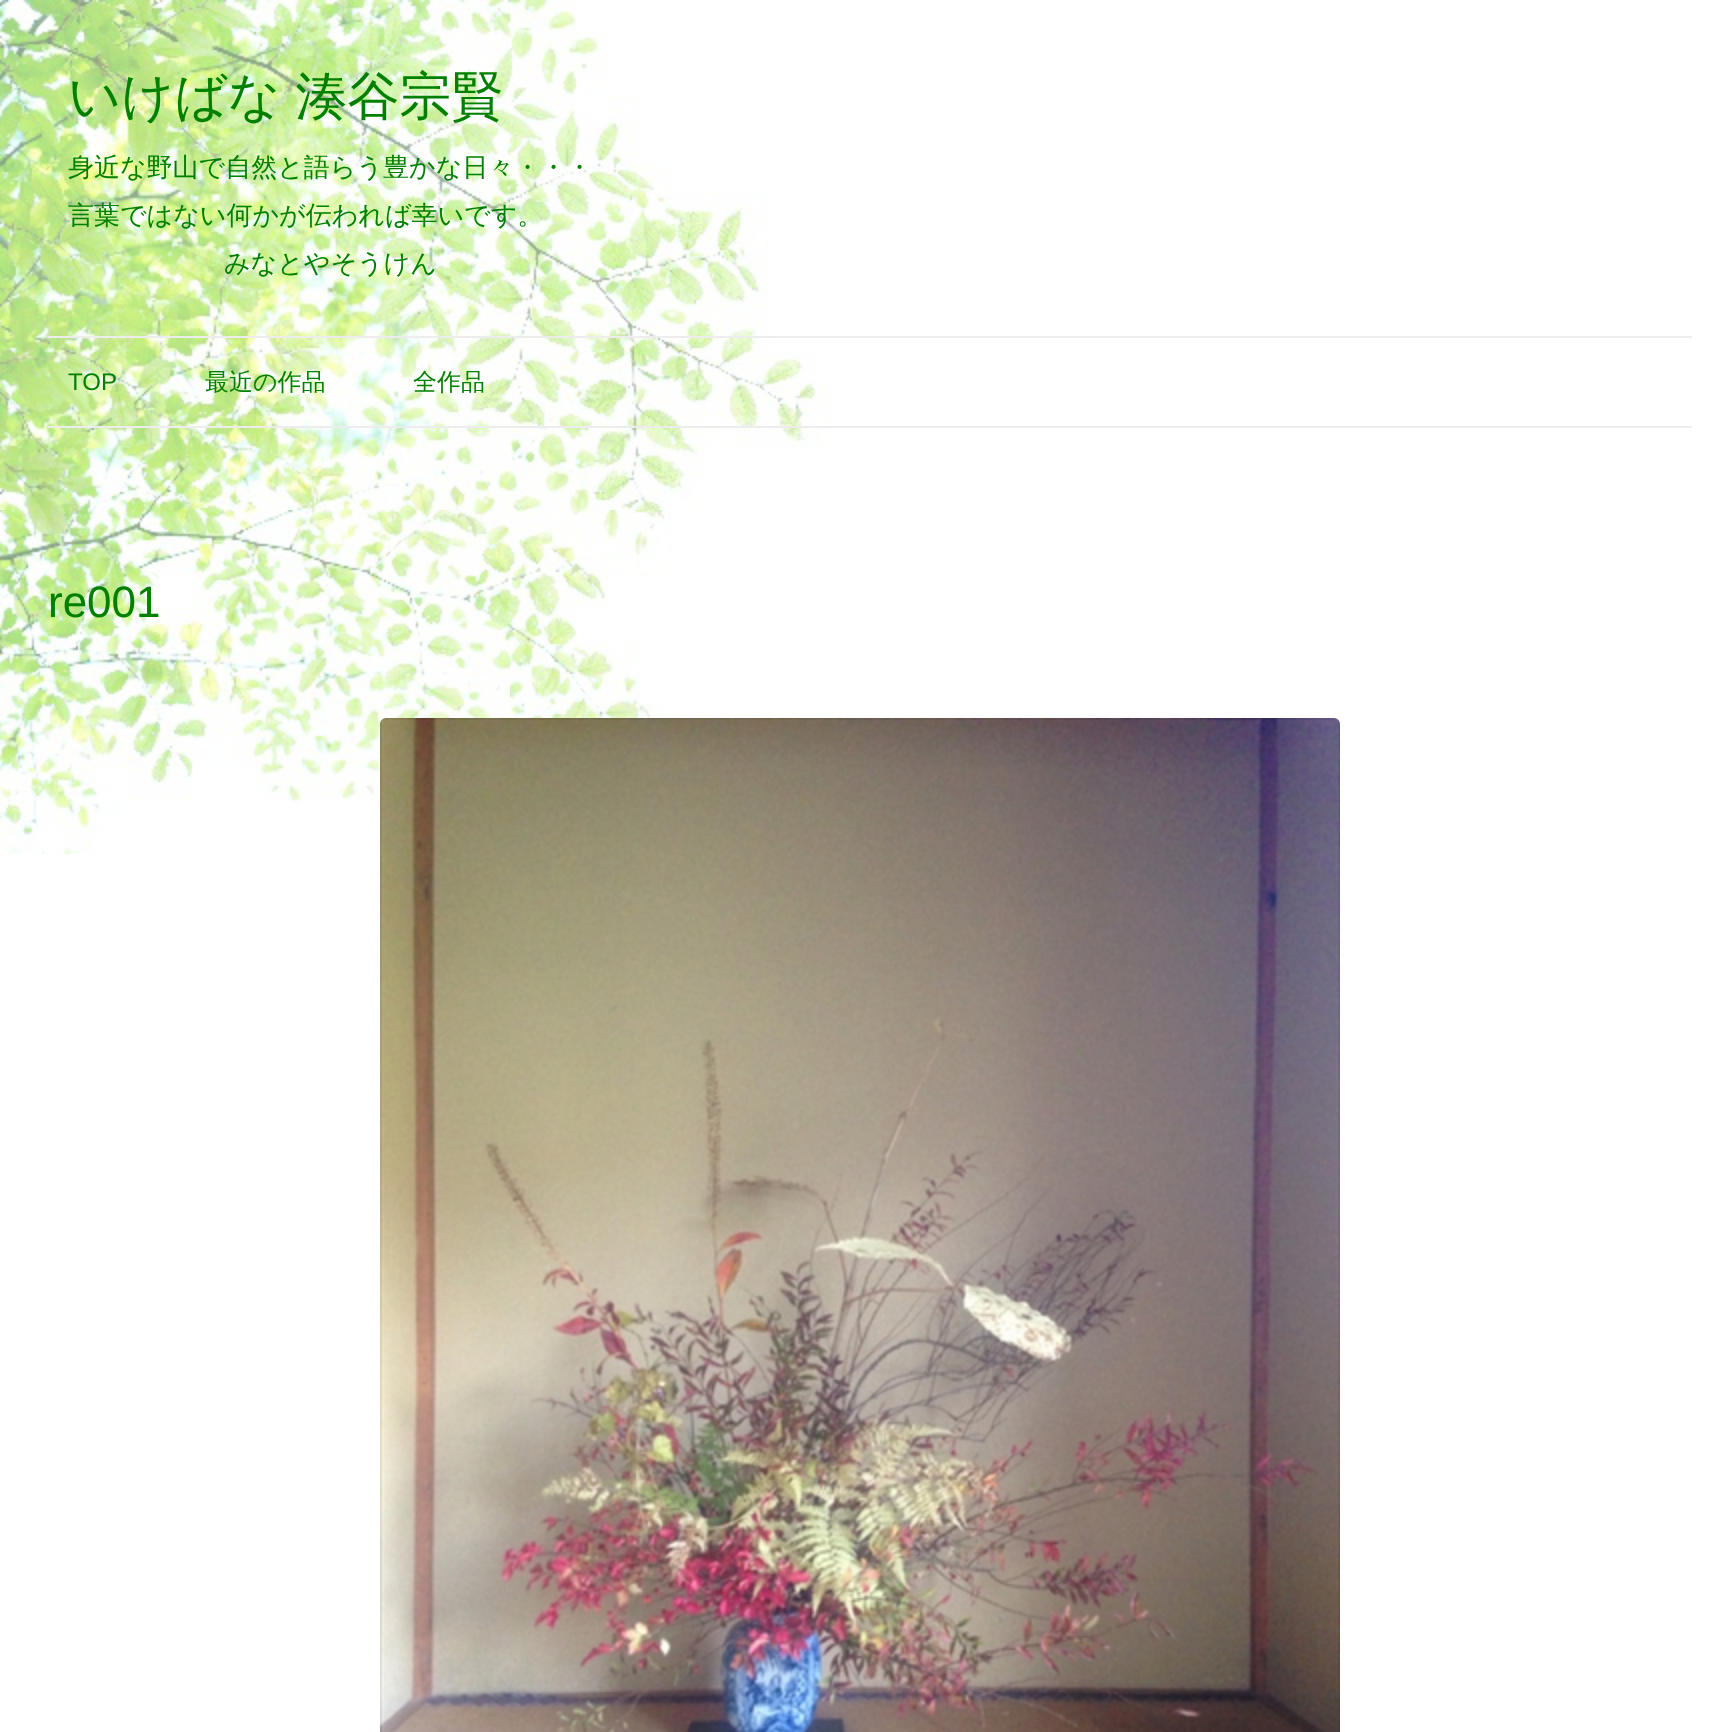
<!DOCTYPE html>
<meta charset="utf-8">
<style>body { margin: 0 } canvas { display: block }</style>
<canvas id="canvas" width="1719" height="1732"></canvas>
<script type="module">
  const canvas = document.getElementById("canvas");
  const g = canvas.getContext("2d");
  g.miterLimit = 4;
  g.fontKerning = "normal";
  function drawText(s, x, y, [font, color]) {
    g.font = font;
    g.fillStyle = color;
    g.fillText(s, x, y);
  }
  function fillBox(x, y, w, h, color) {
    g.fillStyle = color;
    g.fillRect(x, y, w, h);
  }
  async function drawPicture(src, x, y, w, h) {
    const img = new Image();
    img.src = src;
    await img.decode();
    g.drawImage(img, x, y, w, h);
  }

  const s1 = ["500 52px WenQuanYi Zen Hei", "#008000"];
  const s2 = ["500 26px WenQuanYi Zen Hei", "#008000"];
  const s3 = ["24px Liberation Sans", "#008000"];
  const s4 = ["500 24px WenQuanYi Zen Hei", "#008000"];
  const s5 = ["44px Liberation Sans", "#008000"];

  fillBox(0, 0, 1719, 1732, "#FFFFFF");
  await drawPicture("pic1.png", 0, 0, 832, 855);
  g.wordSpacing = "-1px";
  drawText("いけばな 湊谷宗賢", 68, 114, s1);
  g.wordSpacing = "0px";
  drawText("身近な野山で自然と語らう豊かな日々・・・", 68, 176, s2);
  drawText("言葉ではない何かが伝われば幸いです。", 68, 224, s2);
  drawText("みなとやそうけん", 224, 272, s2);
  fillBox(48, 336, 1644, 2, "#EDEDED");
  fillBox(48, 426, 1644, 2, "#EDEDED");
  drawText("TOP", 68, 390, s3);
  drawText("最近の作品", 205, 390, s4);
  drawText("全作品", 413, 390, s4);
  drawText("re001", 48, 617, s5);
  await drawPicture("pic2.png", 380, 718, 960, 1014);
</script>
